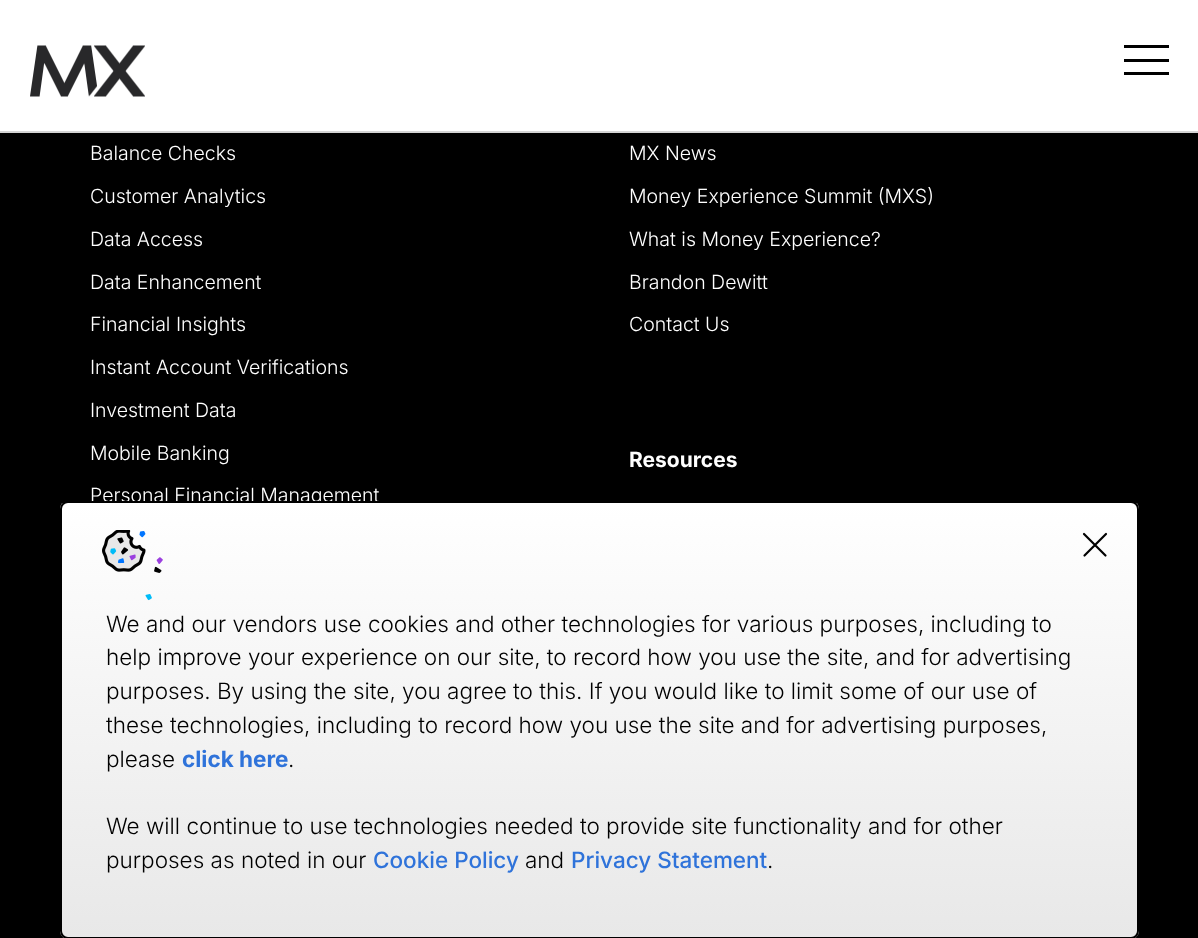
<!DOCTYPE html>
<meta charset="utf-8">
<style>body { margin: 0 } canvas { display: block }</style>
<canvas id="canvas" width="1198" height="938"></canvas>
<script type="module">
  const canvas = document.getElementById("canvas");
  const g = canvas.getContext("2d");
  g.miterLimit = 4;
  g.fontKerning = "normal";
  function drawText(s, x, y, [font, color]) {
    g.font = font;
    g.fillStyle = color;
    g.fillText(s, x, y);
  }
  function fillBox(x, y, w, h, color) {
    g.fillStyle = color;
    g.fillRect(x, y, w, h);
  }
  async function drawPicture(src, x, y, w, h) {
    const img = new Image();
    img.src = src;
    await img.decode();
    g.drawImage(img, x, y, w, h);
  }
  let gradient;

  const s1 = ["300 19.5px Inter", "#FFFFFF"];
  const s2 = ["bold 21px Inter", "#FFFFFF"];
  const s3 = ["300 22.5px Inter", "#000000"];
  const s4 = ["bold 22.5px Inter", "#2F73DA"];
  const s5 = ["500 22.5px Inter", "#2F73DA"];

  fillBox(0, 0, 1198, 938, "#000000");
  fillBox(0, 0, 1198, 131, "#FFFFFF");
  fillBox(0, 131, 1198, 2, "#D5D5D5");
  await drawPicture("pic1.png", 30, 45, 115, 52);
  fillBox(1124, 45, 45, 3, "#000000");
  fillBox(1124, 59, 45, 3, "#000000");
  fillBox(1124, 72, 45, 3, "#000000");
  drawText("Balance Checks", 90, 160, s1);
  drawText("Customer Analytics", 90, 203, s1);
  drawText("Data Access", 90, 246, s1);
  drawText("Data Enhancement", 90, 289, s1);
  drawText("Financial Insights", 90, 331, s1);
  drawText("Instant Account Verifications", 90, 374, s1);
  drawText("Investment Data", 90, 417, s1);
  drawText("Mobile Banking", 90, 460, s1);
  drawText("Personal Financial Management", 90, 502, s1);
  drawText("MX News", 629, 160, s1);
  drawText("Money Experience Summit (MXS)", 629, 203, s1);
  drawText("What is Money Experience?", 629, 246, s1);
  drawText("Brandon Dewitt", 629, 289, s1);
  drawText("Contact Us", 629, 331, s1);
  drawText("Resources", 629, 467, s2);
  g.save();
  g.beginPath();
  g.roundRect(60, 501, 1079, 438, 8);
  g.clip();
  gradient = g.createLinearGradient(599, 502, 599, 938);
  gradient.addColorStop(0, "#FFFFFF");
  gradient.addColorStop(1, "#E8E8E8");
  g.fillStyle = gradient;
  g.fillRect(60, 503, 1079, 435);
  g.restore();
  g.beginPath();
  g.roundRect(61, 502, 1077, 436, 7);
  g.strokeStyle = "#000000";
  g.lineWidth = 2;
  g.stroke();
  g.beginPath();
  g.moveTo(1084, 534);
  g.lineTo(1105.5, 555.5);
  g.moveTo(1106, 534);
  g.lineTo(1084.5, 555.5);
  g.lineWidth = 2.2;
  g.lineCap = "round";
  g.stroke();
  await drawPicture("pic2.png", 102, 530, 61, 71);
  drawText("We and our vendors use cookies and other technologies for various purposes, including to", 106, 632, s3);
  drawText("help improve your experience on our site, to record how you use the site, and for advertising", 106, 665, s3);
  drawText("purposes. By using the site, you agree to this. If you would like to limit some of our use of", 106, 699, s3);
  drawText("these technologies, including to record how you use the site and for advertising purposes,", 106, 733, s3);
  drawText("please", 106, 767, s3);
  drawText("click here", 182, 767, s4);
  drawText(".", 288, 767, s3);
  drawText("We will continue to use technologies needed to provide site functionality and for other", 106, 834, s3);
  drawText("purposes as noted in our", 106, 868, s3);
  drawText("Cookie Policy", 373, 868, s5);
  drawText("and", 525, 868, s3);
  drawText("Privacy Statement", 571, 868, s5);
  drawText(".", 767, 868, s3);
</script>
